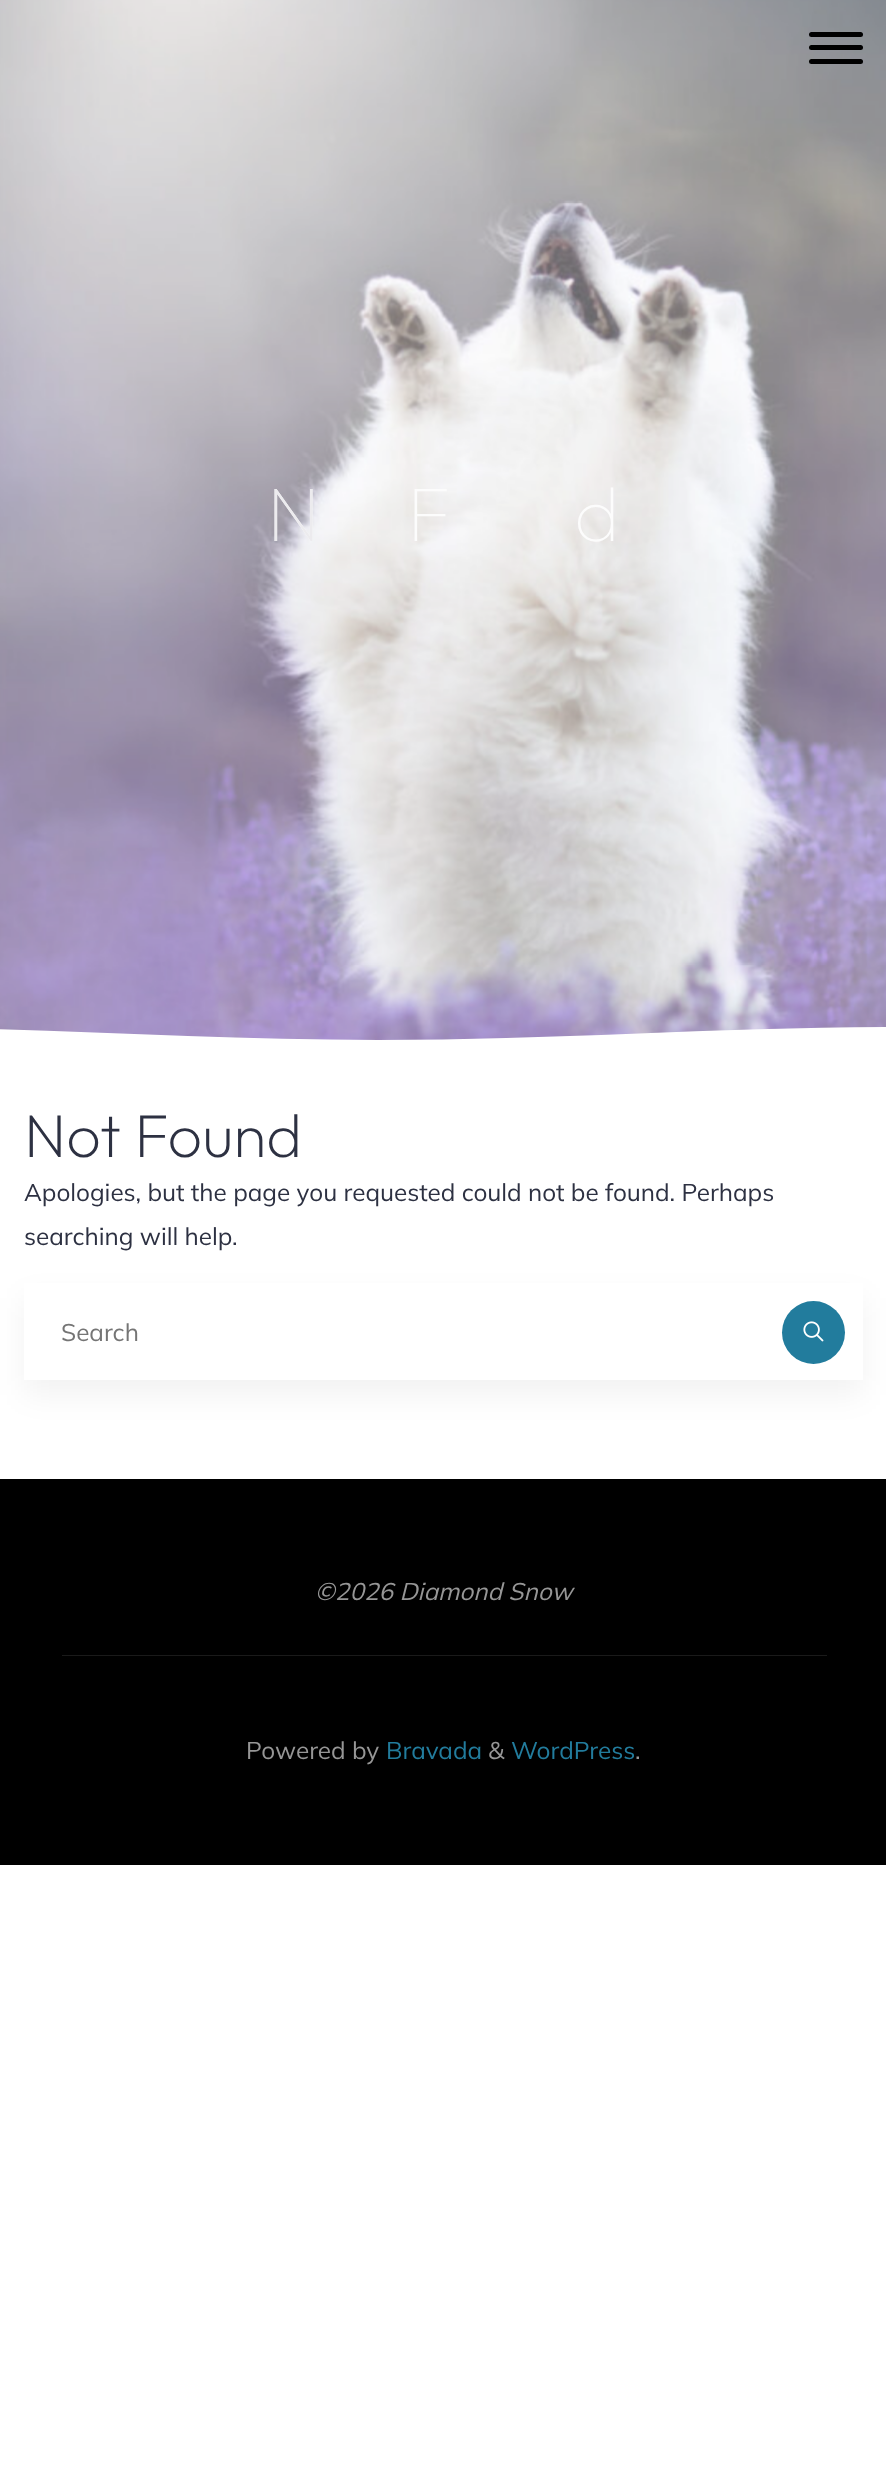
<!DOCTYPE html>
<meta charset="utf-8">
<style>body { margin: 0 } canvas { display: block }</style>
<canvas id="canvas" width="886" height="2490"></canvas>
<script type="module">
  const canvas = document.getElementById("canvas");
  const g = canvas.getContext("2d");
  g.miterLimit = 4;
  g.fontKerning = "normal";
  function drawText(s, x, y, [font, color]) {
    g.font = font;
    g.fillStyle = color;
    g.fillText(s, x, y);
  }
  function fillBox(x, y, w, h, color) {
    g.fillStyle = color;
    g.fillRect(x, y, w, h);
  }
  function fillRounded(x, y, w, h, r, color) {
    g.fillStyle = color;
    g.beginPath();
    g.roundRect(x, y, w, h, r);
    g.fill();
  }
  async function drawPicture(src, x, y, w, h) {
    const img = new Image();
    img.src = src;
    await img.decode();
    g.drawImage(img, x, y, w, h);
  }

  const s1 = ["100 77px Outfit", "#FCFCFC"];
  const s2 = ["100 77px Outfit", "#ECEBEE"];
  const s3 = ["200 60.75px Outfit", "#2D3142"];
  const s4 = ["24.3px Mulish", "#2D3142"];
  const s5 = ["24.3px Mulish", "#757575"];
  const s6 = ["italic 24.3px Mulish", "#969696"];
  const s7 = ["24.3px Mulish", "#969696"];
  const s8 = ["24.3px Mulish", "#227C9D"];

  fillBox(0, 0, 886, 2490, "#FFFFFF");
  await drawPicture("pic1.png", 0, 0, 886, 1040);
  fillRounded(809, 32, 54, 5, 2.5, "#000000");
  fillRounded(809, 45, 54, 5, 2.5, "#000000");
  fillRounded(809, 59, 54, 5, 2.5, "#000000");
  drawText("N", 267, 541, s1);
  drawText("N", 267, 541, s2);
  drawText("F", 407, 541, s1);
  drawText("d", 574, 541, s1);
  g.save();
  g.beginPath();
  g.rect(0, 977, 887, 73);
  g.clip();
  g.fillStyle = "#FFFFFF";
  g.beginPath();
  g.moveTo(-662, 1040);
  g.bezierCurveTo(-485, 1040, -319, 1027, -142, 1027);
  g.bezierCurveTo(35, 1027, 201, 1040, 378, 1040);
  g.bezierCurveTo(556, 1040, 721, 1027, 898, 1027);
  g.bezierCurveTo(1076, 1027, 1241, 1040, 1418, 1040);
  g.lineTo(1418, 1179);
  g.lineTo(-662, 1179);
  g.closePath();
  g.fill();
  g.restore();
  drawText("Not Found", 24, 1157, s3);
  drawText("Apologies, but the page you requested could not be found. Perhaps", 24, 1201, s4);
  drawText("searching will help.", 24, 1245, s4);
  g.save();
  g.beginPath();
  g.moveTo(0, 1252);
  g.lineTo(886, 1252);
  g.lineTo(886, 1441);
  g.lineTo(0, 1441);
  g.closePath();
  g.moveTo(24, 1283);
  g.lineTo(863, 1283);
  g.lineTo(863, 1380);
  g.lineTo(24, 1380);
  g.closePath();
  g.clip("evenodd");
  g.fillStyle = "rgba(0, 0, 0, 0.05)";
  g.filter = "blur(15px)";
  g.beginPath();
  g.rect(24, 1298, 839, 97);
  g.fill();
  g.filter = "none";
  g.restore();
  fillRounded(24, 1283, 839, 97, 48.5, "#FFFFFF");
  drawText("Search", 61, 1341, s5);
  g.fillStyle = "#227C9D";
  g.beginPath();
  g.arc(813.5, 1332.5, 31.5, 0, Math.PI * 2);
  g.fill();
  await drawPicture("pic2.png", 803, 1321, 21, 21);
  fillBox(0, 1479, 886, 386, "#000000");
  drawText("©2026 Diamond Snow", 315, 1600, s6);
  fillBox(62, 1655, 765, 1, "#1A1A1A");
  drawText("Powered by", 246, 1759, s7);
  drawText("Bravada", 386, 1759, s8);
  drawText("&", 488, 1759, s7);
  drawText("WordPress", 511, 1759, s8);
  drawText(".", 635, 1759, s7);
</script>
